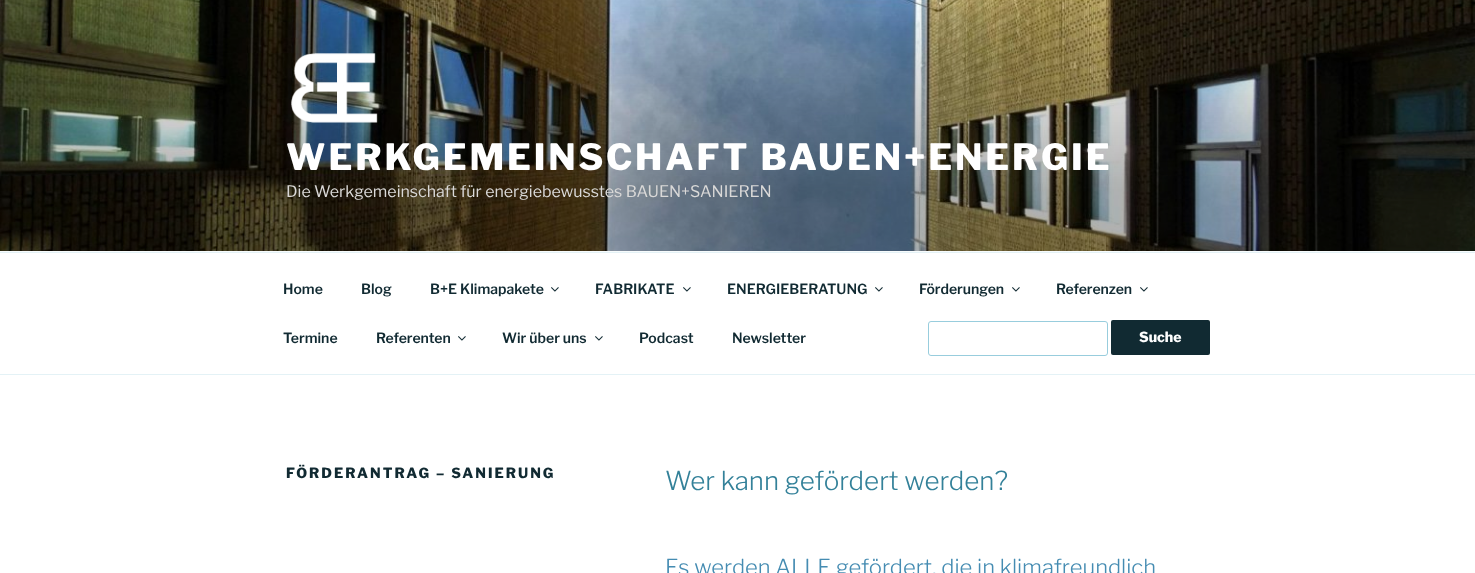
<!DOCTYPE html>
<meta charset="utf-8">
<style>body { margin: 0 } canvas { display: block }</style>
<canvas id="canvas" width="1475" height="573"></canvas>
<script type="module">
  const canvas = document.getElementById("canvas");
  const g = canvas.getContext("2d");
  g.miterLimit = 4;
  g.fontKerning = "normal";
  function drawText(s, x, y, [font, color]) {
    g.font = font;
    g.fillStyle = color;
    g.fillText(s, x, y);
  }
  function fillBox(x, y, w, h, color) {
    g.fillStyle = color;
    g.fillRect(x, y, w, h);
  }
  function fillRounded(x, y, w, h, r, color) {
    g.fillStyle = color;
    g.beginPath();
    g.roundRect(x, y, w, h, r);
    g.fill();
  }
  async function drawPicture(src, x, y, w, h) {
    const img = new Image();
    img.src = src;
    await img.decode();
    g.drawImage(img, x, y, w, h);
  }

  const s1 = ["100 36px Libre Franklin", "#FFFFFF"];
  const s2 = ["100 16px 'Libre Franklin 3'", "#DAD9D8"];
  const s3 = ["100 14px 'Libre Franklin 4'", "#112A32"];
  const s4 = ["100 14px Libre Franklin", "#FFFFFF"];
  const s5 = ["100 14px Libre Franklin", "#112A32"];
  const s6 = ["100 26px 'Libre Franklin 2'", "#338199"];
  const s7 = ["100 22px 'Libre Franklin 2'", "#458CB2"];

  fillBox(0, 0, 1475, 573, "#FFFFFF");
  fillBox(0, 251, 1475, 1, "#F7FBFC");
  await drawPicture("pic1.png", 0, 0, 1475, 251);
  await drawPicture("pic2.png", 291, 53, 87, 70);
  g.letterSpacing = "2.9px";
  drawText("WERKGEMEINSCHAFT BAUEN+ENERGIE", 286, 170, s1);
  g.letterSpacing = "0px";
  drawText("Die Werkgemeinschaft für energiebewusstes BAUEN+SANIEREN", 286, 197, s2);
  fillBox(0, 252, 1475, 1, "#E4F2F6");
  fillBox(0, 374, 1475, 1, "#E4F2F6");
  drawText("Home", 283, 294, s3);
  drawText("Blog", 361, 294, s3);
  drawText("B+E Klimapakete", 430, 294, s3);
  await drawPicture("pic3.png", 551, 287, 8, 5);
  drawText("FABRIKATE", 595, 294, s3);
  await drawPicture("pic3.png", 683, 287, 8, 5);
  drawText("ENERGIEBERATUNG", 727, 294, s3);
  await drawPicture("pic3.png", 875, 287, 8, 5);
  drawText("Förderungen", 919, 294, s3);
  await drawPicture("pic3.png", 1012, 287, 8, 5);
  drawText("Referenzen", 1056, 294, s3);
  await drawPicture("pic3.png", 1140, 287, 8, 5);
  drawText("Termine", 283, 343, s3);
  drawText("Referenten", 376, 343, s3);
  await drawPicture("pic3.png", 458, 336, 8, 5);
  drawText("Wir über uns", 502, 343, s3);
  await drawPicture("pic3.png", 595, 336, 8, 5);
  drawText("Podcast", 639, 343, s3);
  drawText("Newsletter", 732, 343, s3);
  g.beginPath();
  g.roundRect(928.5, 321.5, 179, 34, 2.5);
  g.strokeStyle = "#98CDDD";
  g.stroke();
  fillRounded(1111, 320, 99, 35, 2, "#112A32");
  drawText("Suche", 1139, 342, s4);
  g.letterSpacing = "2px";
  drawText("FÖRDERANTRAG – SANIERUNG", 286, 478, s5);
  g.letterSpacing = "0px";
  drawText("Wer kann gefördert werden?", 665, 490, s6);
  drawText("Es werden ALLE gefördert, die in klimafreundlich", 665, 575, s7);
</script>
